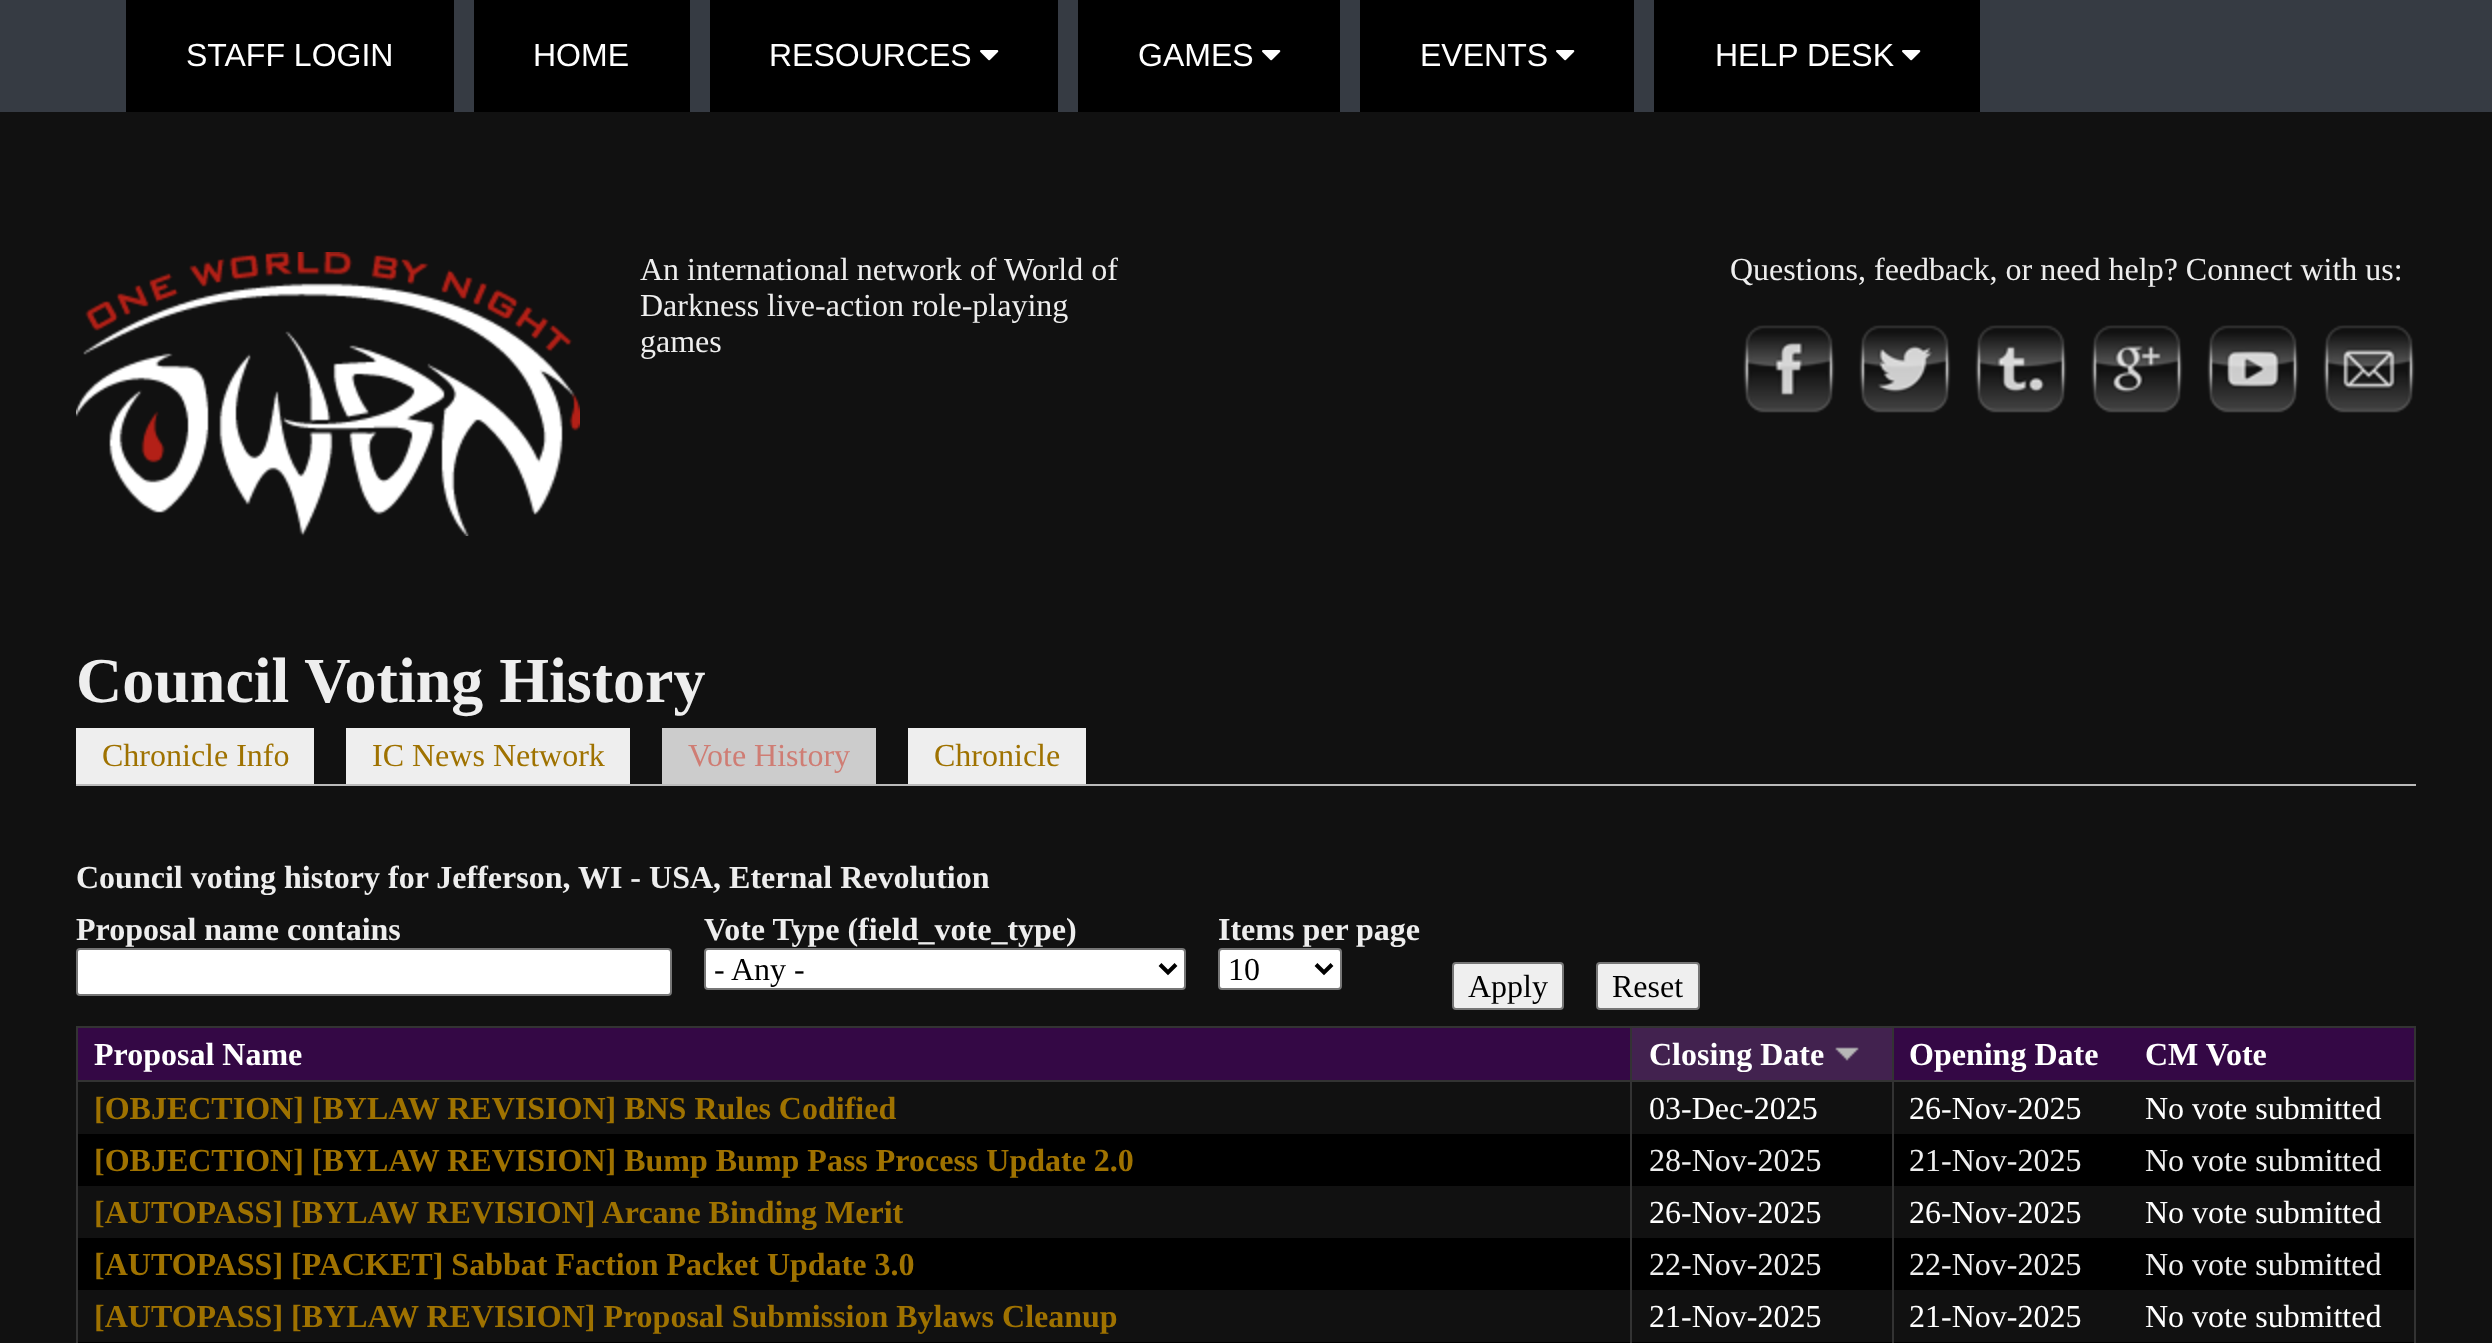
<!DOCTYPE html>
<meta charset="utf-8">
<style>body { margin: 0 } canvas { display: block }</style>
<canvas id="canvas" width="2492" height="1343"></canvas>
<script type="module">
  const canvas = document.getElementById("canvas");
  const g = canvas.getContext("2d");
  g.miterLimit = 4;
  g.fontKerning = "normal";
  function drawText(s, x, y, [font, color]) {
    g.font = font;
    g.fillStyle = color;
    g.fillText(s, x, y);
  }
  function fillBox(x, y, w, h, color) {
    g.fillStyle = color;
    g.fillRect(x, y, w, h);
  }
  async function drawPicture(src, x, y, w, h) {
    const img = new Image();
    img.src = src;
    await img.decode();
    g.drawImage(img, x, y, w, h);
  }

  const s1 = ["32px Liberation Sans", "#FFFFFF"];
  const s2 = ["32px Liberation Serif", "#EEEEEE"];
  const s3 = ["bold 64px Liberation Serif", "#EEEEEE"];
  const s4 = ["32px Liberation Serif", "#9F7200"];
  const s5 = ["32px Liberation Serif", "#CF7D74"];
  const s6 = ["bold 32px Liberation Serif", "#EEEEEE"];
  const s7 = ["32px Liberation Serif", "#000000"];
  const s8 = ["bold 32px Liberation Serif", "#FFFFFF"];
  const s9 = ["bold 32px Liberation Serif", "#9F7200"];
  const s10 = ["32px Liberation Serif", "#FFFFFF"];

  fillBox(0, 0, 2492, 1343, "#111111");
  fillBox(0, 0, 2492, 112, "#363B43");
  fillBox(126, 0, 328, 112, "#000000");
  drawText("STAFF LOGIN", 186, 66, s1);
  fillBox(474, 0, 216, 112, "#000000");
  drawText("HOME", 533, 66, s1);
  fillBox(710, 0, 348, 112, "#000000");
  drawText("RESOURCES", 769, 66, s1);
  await drawPicture("pic1.png", 980, 50, 19, 11);
  fillBox(1078, 0, 262, 112, "#000000");
  drawText("GAMES", 1138, 66, s1);
  await drawPicture("pic1.png", 1262, 50, 19, 11);
  fillBox(1360, 0, 274, 112, "#000000");
  drawText("EVENTS", 1420, 66, s1);
  await drawPicture("pic1.png", 1556, 50, 19, 11);
  fillBox(1654, 0, 326, 112, "#000000");
  drawText("HELP DESK", 1715, 66, s1);
  await drawPicture("pic1.png", 1902, 50, 19, 11);
  await drawPicture("pic2.png", 76, 252, 504, 284);
  drawText("An international network of", 640, 280, s2);
  drawText("World of", 1004, 280, s2);
  drawText("Darkness live-action role-playing", 640, 316, s2);
  drawText("games", 640, 352, s2);
  drawText("Questions, feedback, or need help? Connect with us:", 1730, 280, s2);
  await drawPicture("pic3.png", 1743, 325, 92, 88);
  await drawPicture("pic4.png", 1859, 325, 92, 88);
  await drawPicture("pic5.png", 1975, 325, 92, 88);
  await drawPicture("pic6.png", 2091, 325, 92, 88);
  await drawPicture("pic7.png", 2207, 325, 92, 88);
  await drawPicture("pic8.png", 2323, 325, 92, 88);
  drawText("Council Voting History", 76, 702, s3);
  fillBox(76, 784, 2340, 2, "#BBBBBB");
  fillBox(76, 728, 238, 56, "#EEEEEE");
  drawText("Chronicle Info", 102, 766, s4);
  fillBox(346, 728, 284, 56, "#EEEEEE");
  drawText("IC News Network", 372, 766, s4);
  fillBox(662, 728, 214, 56, "#CCCCCC");
  drawText("Vote History", 688, 766, s5);
  fillBox(908, 728, 178, 56, "#EEEEEE");
  drawText("Chronicle", 934, 766, s4);
  drawText("Council voting history for Jefferson, WI - USA, Eternal Revolution", 76, 888, s6);
  drawText("Proposal name contains", 76, 940, s6);
  g.fillStyle = "#FFFFFF";
  g.beginPath();
  g.roundRect(77, 949, 594, 46, 3);
  g.fill();
  g.strokeStyle = "#767676";
  g.lineWidth = 2;
  g.stroke();
  drawText("Vote Type (field_vote_type)", 704, 940, s6);
  g.fillStyle = "#FFFFFF";
  g.beginPath();
  g.roundRect(705, 949, 480, 40, 3);
  g.fill();
  g.stroke();
  g.beginPath();
  g.moveTo(1160, 964.5);
  g.lineTo(1168, 972.5);
  g.lineTo(1176, 964.5);
  g.strokeStyle = "#000000";
  g.lineWidth = 4;
  g.stroke();
  drawText("- Any -", 714, 980, s7);
  drawText("Items per page", 1218, 940, s6);
  g.fillStyle = "#FFFFFF";
  g.beginPath();
  g.roundRect(1219, 949, 122, 40, 3);
  g.fill();
  g.strokeStyle = "#767676";
  g.lineWidth = 2;
  g.stroke();
  g.beginPath();
  g.moveTo(1316, 964.5);
  g.lineTo(1324, 972.5);
  g.lineTo(1332, 964.5);
  g.strokeStyle = "#000000";
  g.lineWidth = 4;
  g.stroke();
  drawText("10", 1228, 980, s7);
  g.fillStyle = "#EFEFEF";
  g.beginPath();
  g.roundRect(1453, 963, 110, 46, 3);
  g.fill();
  g.strokeStyle = "#767676";
  g.lineWidth = 2;
  g.stroke();
  drawText("Apply", 1468, 997, s7);
  g.fillStyle = "#EFEFEF";
  g.beginPath();
  g.roundRect(1597, 963, 102, 46, 3);
  g.fill();
  g.stroke();
  drawText("Reset", 1612, 997, s7);
  fillBox(76, 1026, 2340, 2, "#333333");
  fillBox(78, 1342, 2338, 1, "#000000");
  fillBox(2414, 1026, 2, 317, "#333333");
  fillBox(76, 1026, 2, 317, "#333333");
  fillBox(78, 1028, 1552, 52, "#340845");
  fillBox(1892, 1080, 2, 263, "#333333");
  fillBox(1892, 1080, 524, 2, "#333333");
  fillBox(1892, 1026, 2, 56, "#333333");
  fillBox(1630, 1080, 2, 263, "#333333");
  fillBox(1630, 1080, 264, 2, "#333333");
  fillBox(1630, 1026, 2, 56, "#333333");
  fillBox(76, 1080, 1556, 2, "#333333");
  drawText("Proposal Name", 94, 1065, s8);
  fillBox(1632, 1028, 260, 52, "#42224F");
  drawText("Closing Date", 1649, 1065, s8);
  await drawPicture("pic9.png", 1835, 1047, 24, 14);
  fillBox(1894, 1028, 520, 52, "#340845");
  drawText("Opening Date", 1909, 1065, s8);
  drawText("CM Vote", 2145, 1065, s8);
  drawText("[OBJECTION] [BYLAW REVISION] BNS Rules Codified", 94, 1119, s9);
  drawText("03-Dec-2025", 1649, 1119, s10);
  drawText("26-Nov-2025", 1909, 1119, s10);
  drawText("No vote submitted", 2145, 1119, s10);
  fillBox(78, 1134, 1552, 52, "#000000");
  drawText("[OBJECTION] [BYLAW REVISION] Bump Bump Pass Process Update 2.0", 94, 1171, s9);
  fillBox(1632, 1134, 260, 52, "#000000");
  drawText("28-Nov-2025", 1649, 1171, s2);
  fillBox(1894, 1134, 520, 52, "#000000");
  drawText("21-Nov-2025", 1909, 1171, s2);
  drawText("No vote submitted", 2145, 1171, s2);
  drawText("[AUTOPASS] [BYLAW REVISION] Arcane Binding Merit", 94, 1223, s9);
  drawText("26-Nov-2025", 1649, 1223, s10);
  drawText("26-Nov-2025", 1909, 1223, s10);
  drawText("No vote submitted", 2145, 1223, s10);
  fillBox(78, 1238, 1552, 52, "#000000");
  drawText("[AUTOPASS] [PACKET] Sabbat Faction Packet Update 3.0", 94, 1275, s9);
  fillBox(1632, 1238, 260, 52, "#000000");
  drawText("22-Nov-2025", 1649, 1275, s2);
  fillBox(1894, 1238, 520, 52, "#000000");
  drawText("22-Nov-2025", 1909, 1275, s2);
  drawText("No vote submitted", 2145, 1275, s2);
  drawText("[AUTOPASS] [BYLAW REVISION] Proposal Submission Bylaws Cleanup", 94, 1327, s9);
  drawText("21-Nov-2025", 1649, 1327, s10);
  drawText("21-Nov-2025", 1909, 1327, s10);
  drawText("No vote submitted", 2145, 1327, s10);
</script>
